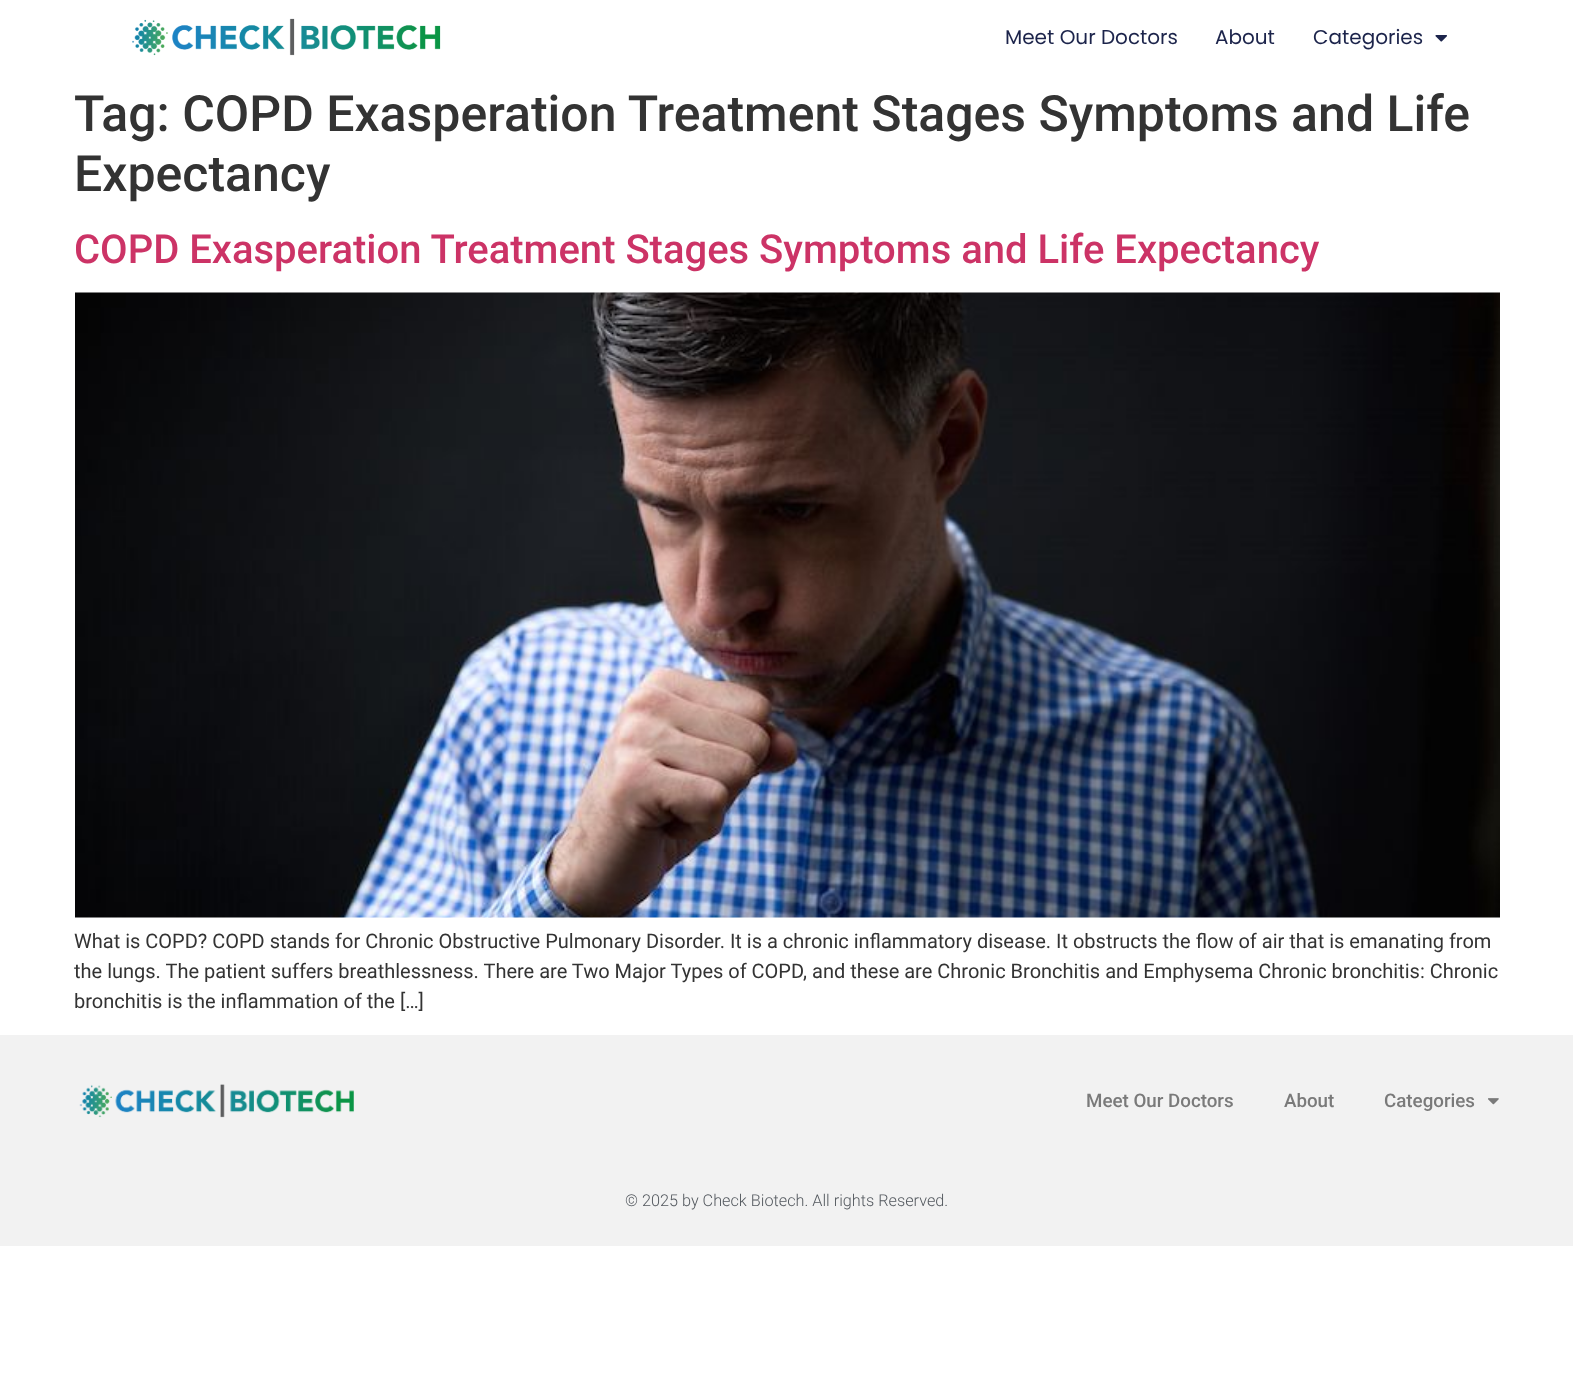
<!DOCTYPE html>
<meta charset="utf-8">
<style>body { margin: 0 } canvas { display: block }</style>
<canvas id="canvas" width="1573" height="1376"></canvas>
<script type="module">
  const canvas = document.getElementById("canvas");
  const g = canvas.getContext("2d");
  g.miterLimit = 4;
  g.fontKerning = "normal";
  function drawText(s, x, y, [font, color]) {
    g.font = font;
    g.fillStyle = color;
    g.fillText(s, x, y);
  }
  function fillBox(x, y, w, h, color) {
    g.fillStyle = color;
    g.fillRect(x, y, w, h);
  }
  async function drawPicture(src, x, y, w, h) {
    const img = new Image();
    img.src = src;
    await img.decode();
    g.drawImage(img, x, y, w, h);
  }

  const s1 = ["20px Poppins", "#1C244B"];
  const s2 = ["500 50px Roboto", "#333333"];
  const s3 = ["500 40px Roboto", "#CC3366"];
  const s4 = ["20px Roboto", "#333333"];
  const s5 = ["500 18.75px Roboto", "#7A7A7A"];
  const s6 = ["300 16.25px Roboto", "#54595F"];

  fillBox(0, 0, 1573, 1376, "#FFFFFF");
  await drawPicture("pic1.png", 132, 18, 309, 38);
  drawText("Meet Our Doctors", 1005, 44, s1);
  drawText("About", 1215, 44, s1);
  drawText("Categories", 1313, 44, s1);
  await drawPicture("pic2.png", 1435, 35, 12, 7);
  drawText("Tag: COPD Exasperation Treatment Stages Symptoms and Life", 74, 131, s2);
  drawText("Expectancy", 74, 191, s2);
  drawText("COPD Exasperation Treatment Stages Symptoms and Life Expectancy", 74, 263, s3);
  await drawPicture("pic3.png", 75, 292, 1425, 626);
  drawText("What is COPD? COPD stands for Chronic Obstructive Pulmonary Disorder. It is a chronic inflammatory disease. It obstructs the flow of air that is emanating from", 74, 948, s4);
  drawText("the lungs. The patient suffers breathlessness. There are Two Major Types of COPD, and these are Chronic Bronchitis and Emphysema Chronic bronchitis: Chronic", 74, 978, s4);
  drawText("bronchitis is the inflammation of the […]", 74, 1008, s4);
  fillBox(0, 1035, 1573, 211, "#F2F2F2");
  await drawPicture("pic4.png", 79, 1084, 275, 34);
  drawText("Meet Our Doctors", 1086, 1107, s5);
  drawText("About", 1284, 1107, s5);
  drawText("Categories", 1384, 1107, s5);
  await drawPicture("pic5.png", 1488, 1098, 11, 7);
  drawText("© 2025 by Check Biotech. All rights Reserved.", 625, 1206, s6);
</script>
